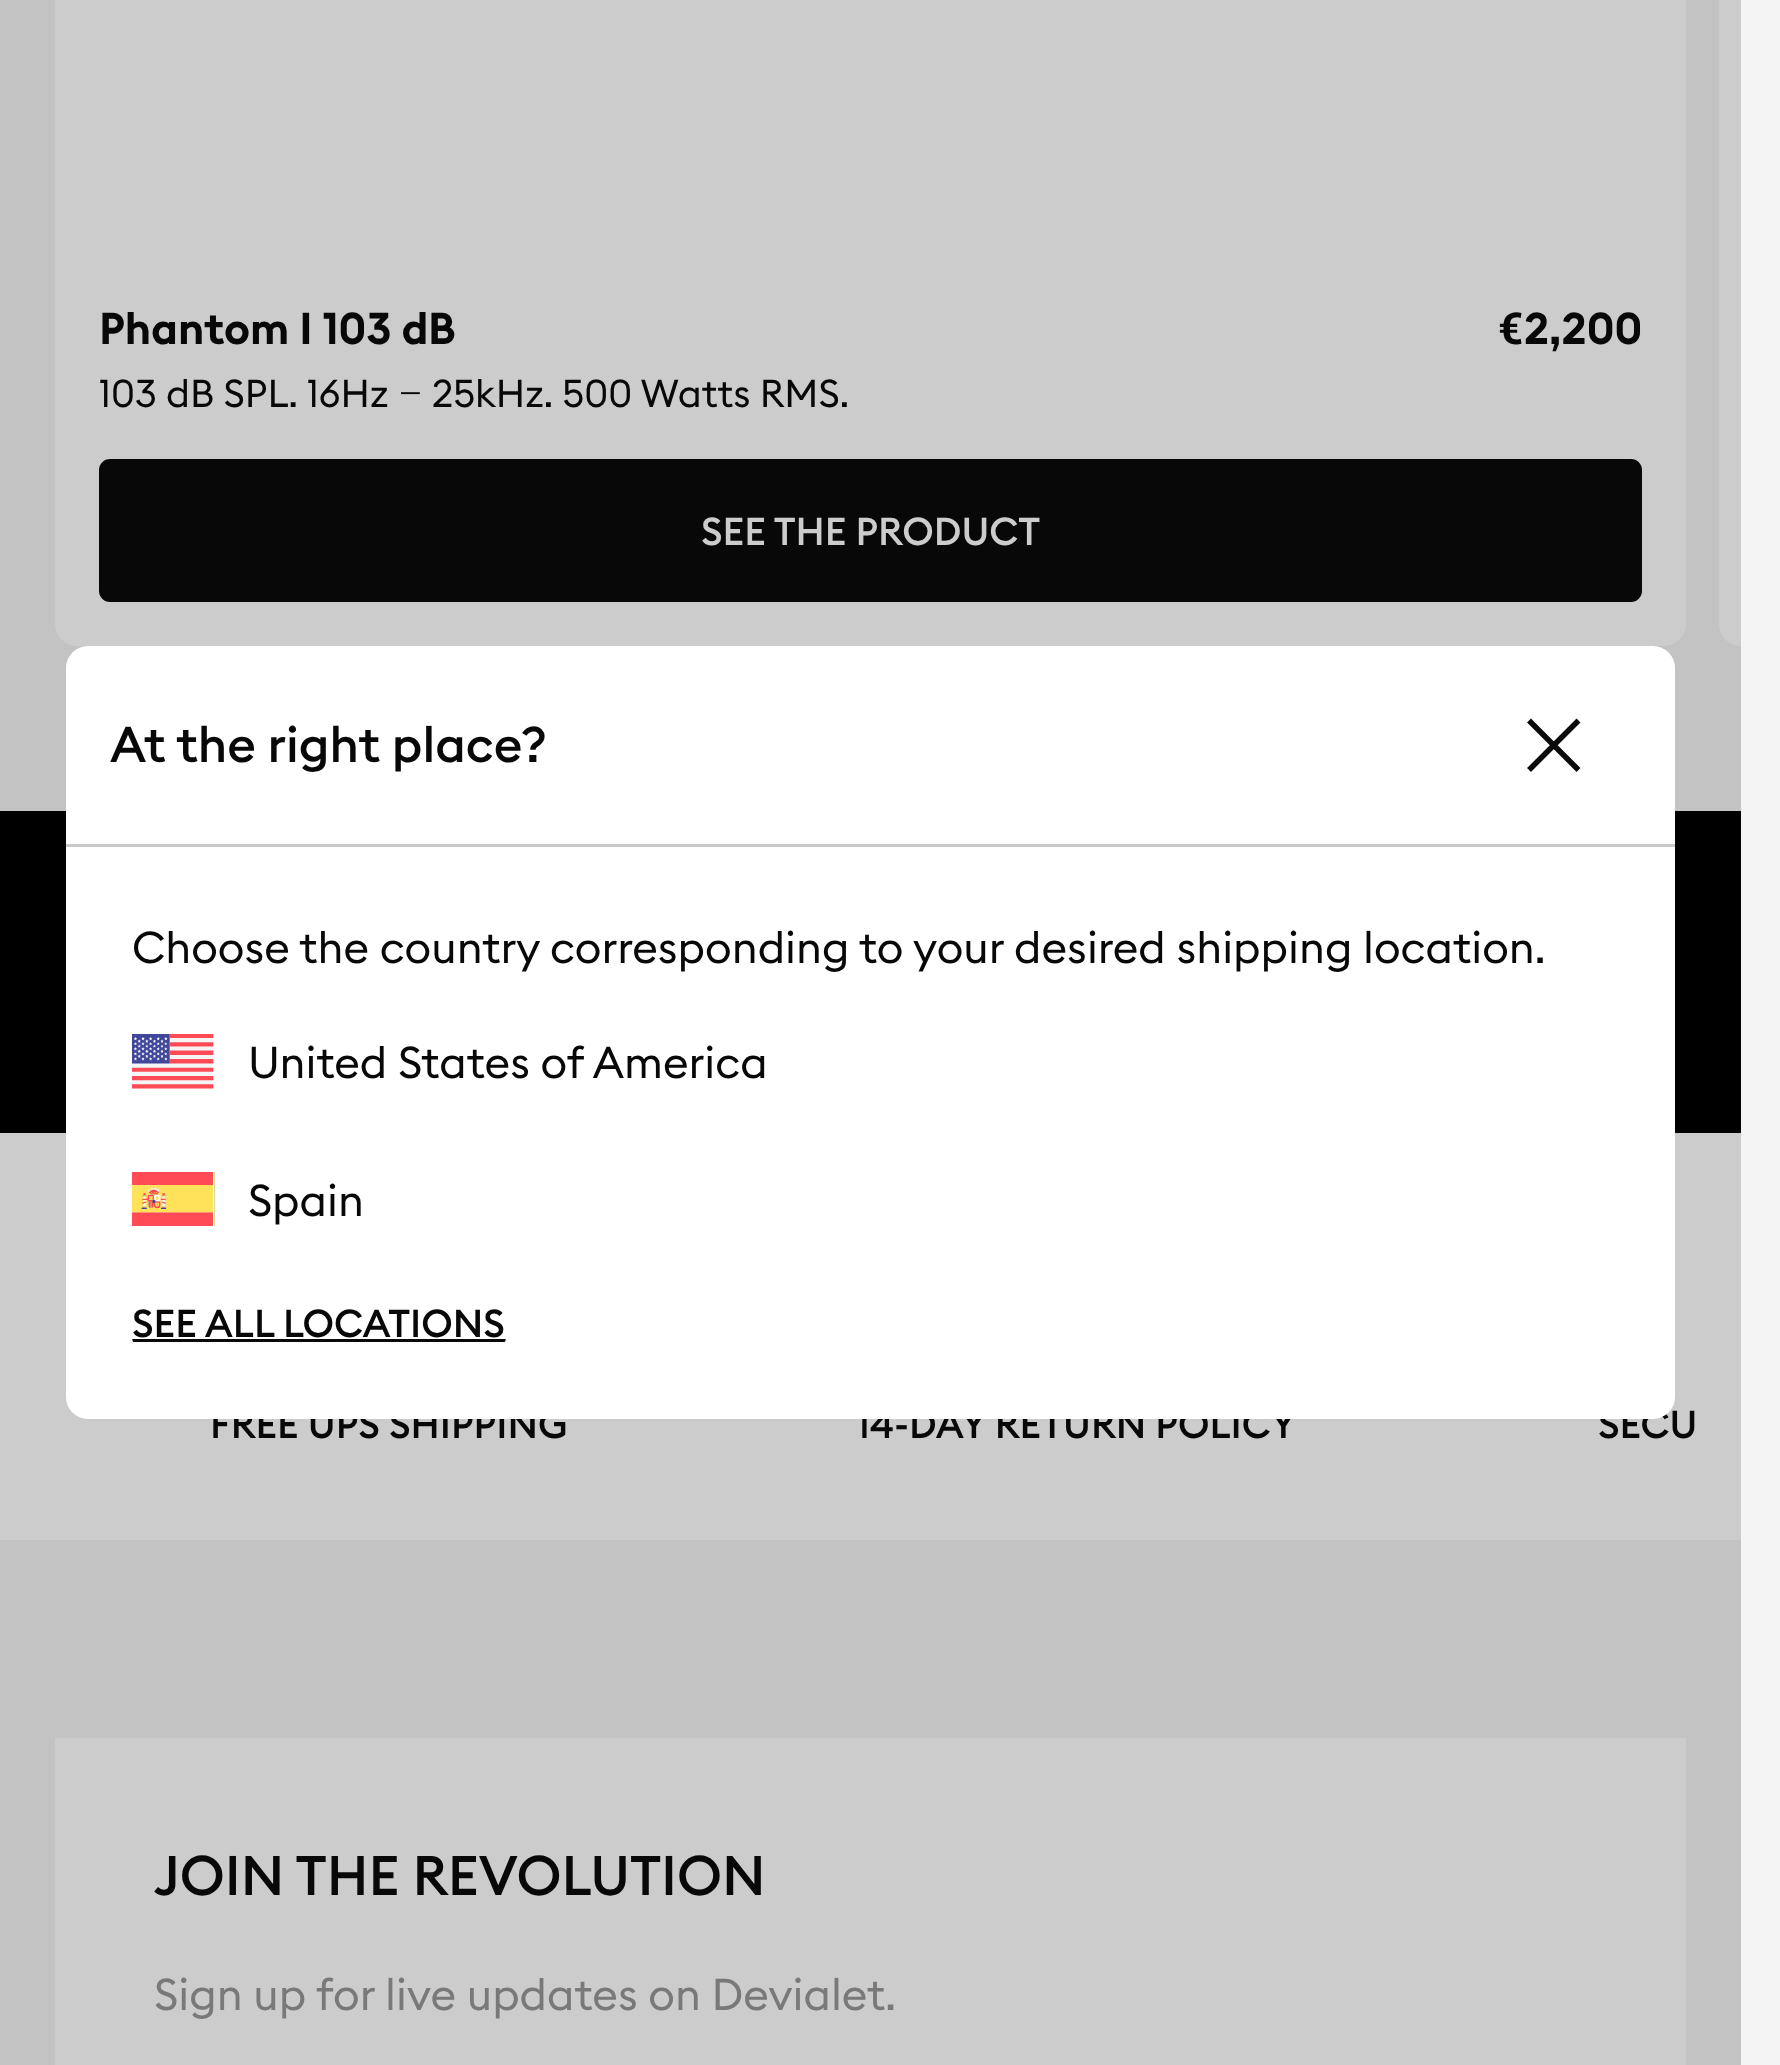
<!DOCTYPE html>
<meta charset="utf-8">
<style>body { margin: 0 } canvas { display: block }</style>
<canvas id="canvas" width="1780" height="2065"></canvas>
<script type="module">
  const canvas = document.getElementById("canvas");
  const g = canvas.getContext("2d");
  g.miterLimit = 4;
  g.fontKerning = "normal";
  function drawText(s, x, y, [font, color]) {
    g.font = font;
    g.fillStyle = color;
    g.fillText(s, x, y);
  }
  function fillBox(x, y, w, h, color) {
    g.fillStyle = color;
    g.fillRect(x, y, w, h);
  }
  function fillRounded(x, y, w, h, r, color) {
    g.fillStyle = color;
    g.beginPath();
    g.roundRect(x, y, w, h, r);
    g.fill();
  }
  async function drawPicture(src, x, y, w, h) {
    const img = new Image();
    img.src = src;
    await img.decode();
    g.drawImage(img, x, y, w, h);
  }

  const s1 = ["600 44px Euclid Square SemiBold", "#080808"];
  const s2 = ["bold 44px Roboto", "#080808"];
  const s3 = ["38.5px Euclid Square", "#080808"];
  const s4 = ["300 38.5px Roboto", "#080808"];
  const s5 = ["500 38.5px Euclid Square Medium", "#CCCCCC"];
  const s6 = ["500 38.5px Euclid Square Medium", "#080808"];
  const s7 = ["500 55px Euclid Square Medium", "#080808"];
  const s8 = ["44px Euclid Square", "#797979"];
  const s9 = ["500 49.5px Euclid Square Medium", "#080808"];
  const s10 = ["44px Euclid Square", "#080808"];

  fillBox(0, 0, 1780, 2065, "#F4F4F4");
  fillBox(0, 0, 1741, 2065, "#C3C3C3");
  fillRounded(55, -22, 1631, 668, 22, "#CCCCCC");
  drawText("Phantom I 103 dB", 99, 344, s1);
  drawText("€", 1498, 344, s2);
  drawText("2,200", 1524, 344, s1);
  drawText("103 dB SPL. 16Hz", 99, 407, s3);
  drawText("–", 398, 407, s4);
  drawText("25kHz. 500 Watts RMS.", 432, 407, s3);
  g.beginPath();
  g.roundRect(100.5, 460.5, 1540, 140, 9.5);
  g.fill();
  g.strokeStyle = "#080808";
  g.lineWidth = 3;
  g.stroke();
  drawText("SEE THE PRODUCT", 701, 545, s5);
  g.beginPath();
  g.moveTo(1741, -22);
  g.lineTo(1741, 646);
  g.bezierCurveTo(1729, 646, 1719, 636, 1719, 624);
  g.lineTo(1719, 0);
  g.bezierCurveTo(1719, -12, 1729, -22, 1741, -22);
  g.closePath();
  g.fill();
  fillBox(0, 811, 1741, 322, "#000000");
  fillBox(0, 1133, 1741, 407, "#CCCCCC");
  drawText("FREE UPS SHIPPING", 210, 1438, s6);
  drawText("14-DAY RETURN POLICY", 857, 1438, s6);
  drawText("SECU", 1598, 1438, s6);
  fillBox(55, 1738, 1631, 327, "#CCCCCC");
  drawText("JOIN THE REVOLUTION", 154, 1895, s7);
  drawText("Sign up for live updates on Devialet.", 154, 2010, s8);
  fillRounded(66, 646, 1609, 773, 22, "#FFFFFF");
  fillBox(66, 844, 1609, 3, "#CACACA");
  drawText("At the right place?", 110, 762, s9);
  g.beginPath();
  g.moveTo(1529, 720.5);
  g.lineTo(1578.5, 770);
  g.moveTo(1529, 770);
  g.lineTo(1578.5, 720.5);
  g.strokeStyle = "#0A0A0A";
  g.lineWidth = 5.5;
  g.stroke();
  drawText("Choose the country corresponding to your desired shipping location.", 132, 963, s10);
  await drawPicture("pic1.png", 132, 1034, 82, 55);
  drawText("United States of America", 248, 1078, s10);
  await drawPicture("pic2.png", 132, 1172, 83, 54);
  drawText("Spain", 248, 1216, s10);
  drawText("SEE ALL LOCATIONS", 132, 1337, s6);
  g.save();
  g.beginPath();
  g.roundRect(132, 1298, 374, 50, 11);
  g.clip();
  fillBox(132, 1339, 374, 3, "#0A0A0A");
  g.restore();
</script>
